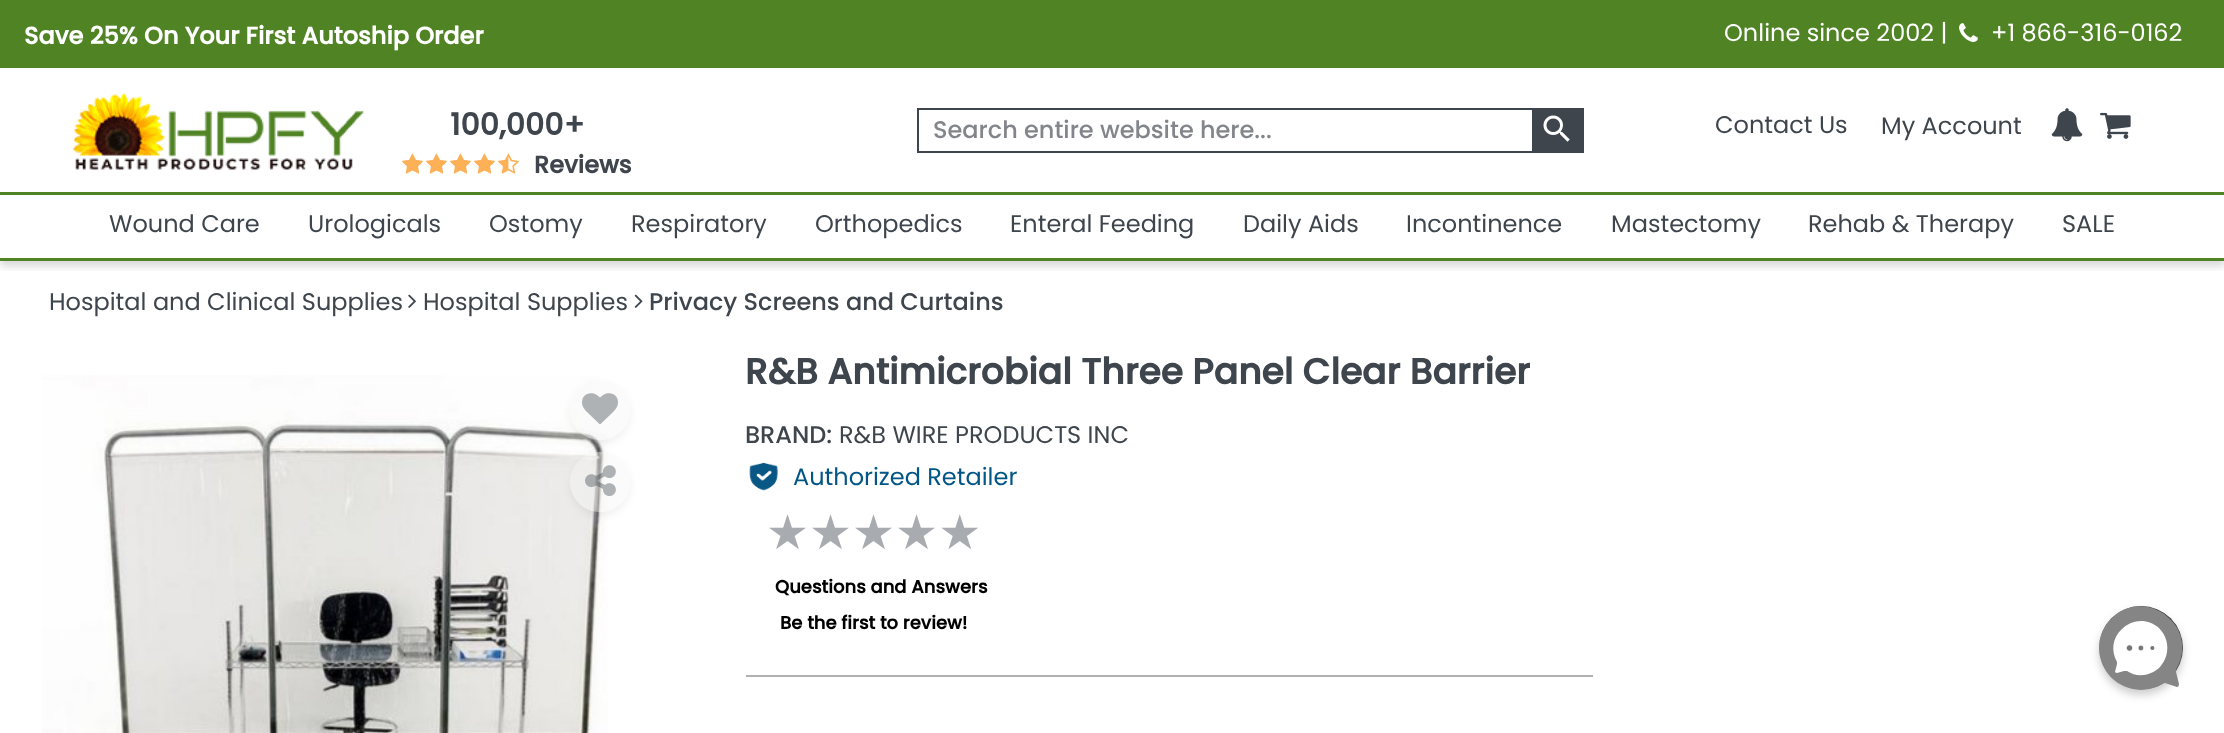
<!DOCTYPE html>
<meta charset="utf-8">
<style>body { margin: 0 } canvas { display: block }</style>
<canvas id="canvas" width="2224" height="733"></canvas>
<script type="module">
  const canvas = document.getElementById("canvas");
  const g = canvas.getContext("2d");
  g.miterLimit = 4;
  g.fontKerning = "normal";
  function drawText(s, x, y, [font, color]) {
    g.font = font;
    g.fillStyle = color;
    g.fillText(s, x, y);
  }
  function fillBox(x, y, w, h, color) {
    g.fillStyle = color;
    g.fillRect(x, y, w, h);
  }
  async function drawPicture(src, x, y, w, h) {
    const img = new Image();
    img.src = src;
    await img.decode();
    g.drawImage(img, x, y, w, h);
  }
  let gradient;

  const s1 = ["bold 24px Poppins", "#FFFFFF"];
  const s2 = ["24px Poppins", "#FFFFFF"];
  const s3 = ["bold 30px Poppins", "#3E454C"];
  const s4 = ["bold 24px Poppins", "#3E454C"];
  const s5 = ["500 24px Poppins", "#82868B"];
  const s6 = ["24px Poppins", "#3E454C"];
  const s7 = ["500 24px Poppins", "#3E454C"];
  const s8 = ["bold 36px Poppins", "#3E454C"];
  const s9 = ["24px Poppins", "#025685"];
  const s10 = ["48px DejaVu Sans", "#A8ABAF"];
  const s11 = ["bold 18px Poppins", "#000000"];

  fillBox(0, 0, 2224, 733, "#FFFFFF");
  g.save();
  g.beginPath();
  g.rect(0, 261, 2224, 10);
  g.clip();
  g.fillStyle = "rgba(0, 0, 0, 0.16)";
  g.filter = "blur(4.5px)";
  g.beginPath();
  g.rect(0, 5, 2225, 261);
  g.fill();
  g.filter = "none";
  g.restore();
  fillBox(0, 258, 2224, 3, "#4F8324");
  fillBox(0, 0, 2224, 68, "#4F8324");
  drawText("Save 25% On Your First Autoship Order", 24, 44, s1);
  drawText("Online since 2002 |", 1724, 41, s2);
  await drawPicture("pic1.png", 1959, 23, 19, 19);
  drawText("+1 866-316-0162", 1991, 41, s2);
  await drawPicture("pic2.png", 72, 92, 292, 78);
  drawText("100,000+", 450, 135, s3);
  await drawPicture("pic3.png", 402, 153, 21, 21);
  await drawPicture("pic3.png", 426, 153, 21, 21);
  await drawPicture("pic3.png", 450, 153, 21, 21);
  await drawPicture("pic3.png", 474, 153, 21, 21);
  await drawPicture("pic4.png", 498, 153, 21, 21);
  drawText("Reviews", 534, 173, s4);
  g.strokeStyle = "#3E454C";
  g.lineWidth = 2;
  g.strokeRect(918, 109, 665, 43);
  drawText("Search entire website here...", 933, 138, s5);
  fillBox(1532, 110, 50, 41, "#3E454C");
  await drawPicture("pic5.png", 1543, 115, 27, 27);
  drawText("Contact Us", 1715, 133, s6);
  drawText("My Account", 1881, 134, s6);
  await drawPicture("pic6.png", 2051, 108, 32, 34);
  await drawPicture("pic7.png", 2100, 112, 31, 27);
  fillBox(0, 192, 2224, 3, "#4F8324");
  drawText("Wound Care", 109, 232, s6);
  drawText("Urologicals", 308, 232, s6);
  drawText("Ostomy", 489, 232, s6);
  drawText("Respiratory", 631, 232, s6);
  drawText("Orthopedics", 815, 232, s6);
  drawText("Enteral Feeding", 1010, 232, s6);
  drawText("Daily Aids", 1243, 232, s6);
  drawText("Incontinence", 1406, 232, s6);
  drawText("Mastectomy", 1611, 232, s6);
  drawText("Rehab & Therapy", 1808, 232, s6);
  drawText("SALE", 2062, 232, s6);
  drawText("Hospital and Clinical Supplies", 49, 310, s6);
  await drawPicture("pic8.png", 408, 294, 8, 14);
  drawText("Hospital Supplies", 423, 310, s6);
  await drawPicture("pic9.png", 634, 294, 9, 14);
  drawText("Privacy Screens and Curtains", 649, 310, s7);
  await drawPicture("pic12.png", 42, 375, 566, 358);
  g.save();
  g.beginPath();
  g.moveTo(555, 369);
  g.lineTo(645, 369);
  g.lineTo(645, 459);
  g.lineTo(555, 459);
  g.closePath();
  g.moveTo(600, 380);
  g.bezierCurveTo(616.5, 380, 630, 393.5, 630, 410);
  g.bezierCurveTo(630, 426.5, 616.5, 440, 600, 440);
  g.bezierCurveTo(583.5, 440, 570, 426.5, 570, 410);
  g.bezierCurveTo(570, 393.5, 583.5, 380, 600, 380);
  g.closePath();
  g.clip("evenodd");
  g.fillStyle = "rgba(0, 0, 0, 0.06)";
  g.filter = "blur(4.5px)";
  g.beginPath();
  g.roundRect(570, 384, 60, 60, 30);
  g.fill();
  g.filter = "none";
  g.restore();
  g.fillStyle = "rgba(246, 246, 246, 0.4)";
  g.beginPath();
  g.arc(600, 410, 30, 0, Math.PI * 2);
  g.fill();
  await drawPicture("pic10.png", 582, 393, 36, 31);
  g.save();
  g.beginPath();
  g.moveTo(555, 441);
  g.lineTo(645, 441);
  g.lineTo(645, 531);
  g.lineTo(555, 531);
  g.closePath();
  g.moveTo(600, 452);
  g.bezierCurveTo(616.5, 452, 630, 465.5, 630, 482);
  g.bezierCurveTo(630, 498.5, 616.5, 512, 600, 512);
  g.bezierCurveTo(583.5, 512, 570, 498.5, 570, 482);
  g.bezierCurveTo(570, 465.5, 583.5, 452, 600, 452);
  g.closePath();
  g.clip("evenodd");
  g.fillStyle = "rgba(0, 0, 0, 0.06)";
  g.filter = "blur(4.5px)";
  g.beginPath();
  g.roundRect(570, 456, 60, 60, 30);
  g.fill();
  g.filter = "none";
  g.restore();
  g.beginPath();
  g.arc(600, 482, 30, 0, Math.PI * 2);
  g.fill();
  await drawPicture("pic11.png", 585, 465, 31, 31);
  drawText("R&B Antimicrobial Three Panel Clear Barrier", 745, 384, s8);
  drawText("BRAND:", 745, 443, s7);
  drawText("R&B WIRE PRODUCTS INC", 839, 443, s6);
  await drawPicture("pic13.png", 749, 462, 29, 29);
  drawText("Authorized Retailer", 793, 485, s9);
  drawText("★★★★★", 766, 549, s10);
  drawText("Questions and Answers", 775, 593, s11);
  drawText("Be the first to review!", 780, 629, s11);
  fillBox(746, 675, 847, 2, "#B1B1B1");
  g.fillStyle = "rgba(0, 0, 0, 0.2)";
  g.filter = "blur(4.5px)";
  g.beginPath();
  g.roundRect(2099, 611, 84, 84, 42);
  g.fill();
  g.filter = "none";
  gradient = g.createLinearGradient(2099, 690, 2183, 606);
  gradient.addColorStop(0, "#B3B3B3");
  gradient.addColorStop(1, "#222222");
  g.fillStyle = gradient;
  g.beginPath();
  g.arc(2141, 648, 42, 0, Math.PI * 2);
  g.fill();
  g.fillStyle = "#858585";
  g.beginPath();
  g.moveTo(2170, 619);
  g.bezierCurveTo(2153, 602, 2126, 602, 2110, 620);
  g.bezierCurveTo(2095, 636, 2096, 661, 2111, 677);
  g.bezierCurveTo(2125, 691, 2146, 693, 2162, 684);
  g.bezierCurveTo(2163, 683, 2164, 683, 2165, 683);
  g.lineTo(2177, 687);
  g.bezierCurveTo(2178, 687, 2179, 686, 2179, 684);
  g.lineTo(2176, 672);
  g.bezierCurveTo(2176, 671, 2176, 670, 2176, 669);
  g.bezierCurveTo(2186, 653, 2184, 632, 2170, 619);
  g.closePath();
  g.fill();
  g.fillStyle = "#FFFFFF";
  g.beginPath();
  g.moveTo(2160, 667);
  g.bezierCurveTo(2170, 656, 2170, 639, 2159, 628);
  g.bezierCurveTo(2148, 618, 2132, 619, 2122, 629);
  g.bezierCurveTo(2112, 638, 2111, 651, 2117, 662);
  g.lineTo(2117, 664);
  g.lineTo(2115, 672);
  g.bezierCurveTo(2115, 672, 2116, 673, 2117, 673);
  g.lineTo(2124, 671);
  g.lineTo(2127, 671);
  g.bezierCurveTo(2137, 678, 2151, 676, 2160, 667);
  g.closePath();
  g.fill();
  await drawPicture("pic14.png", 2126, 645, 29, 6);
</script>
